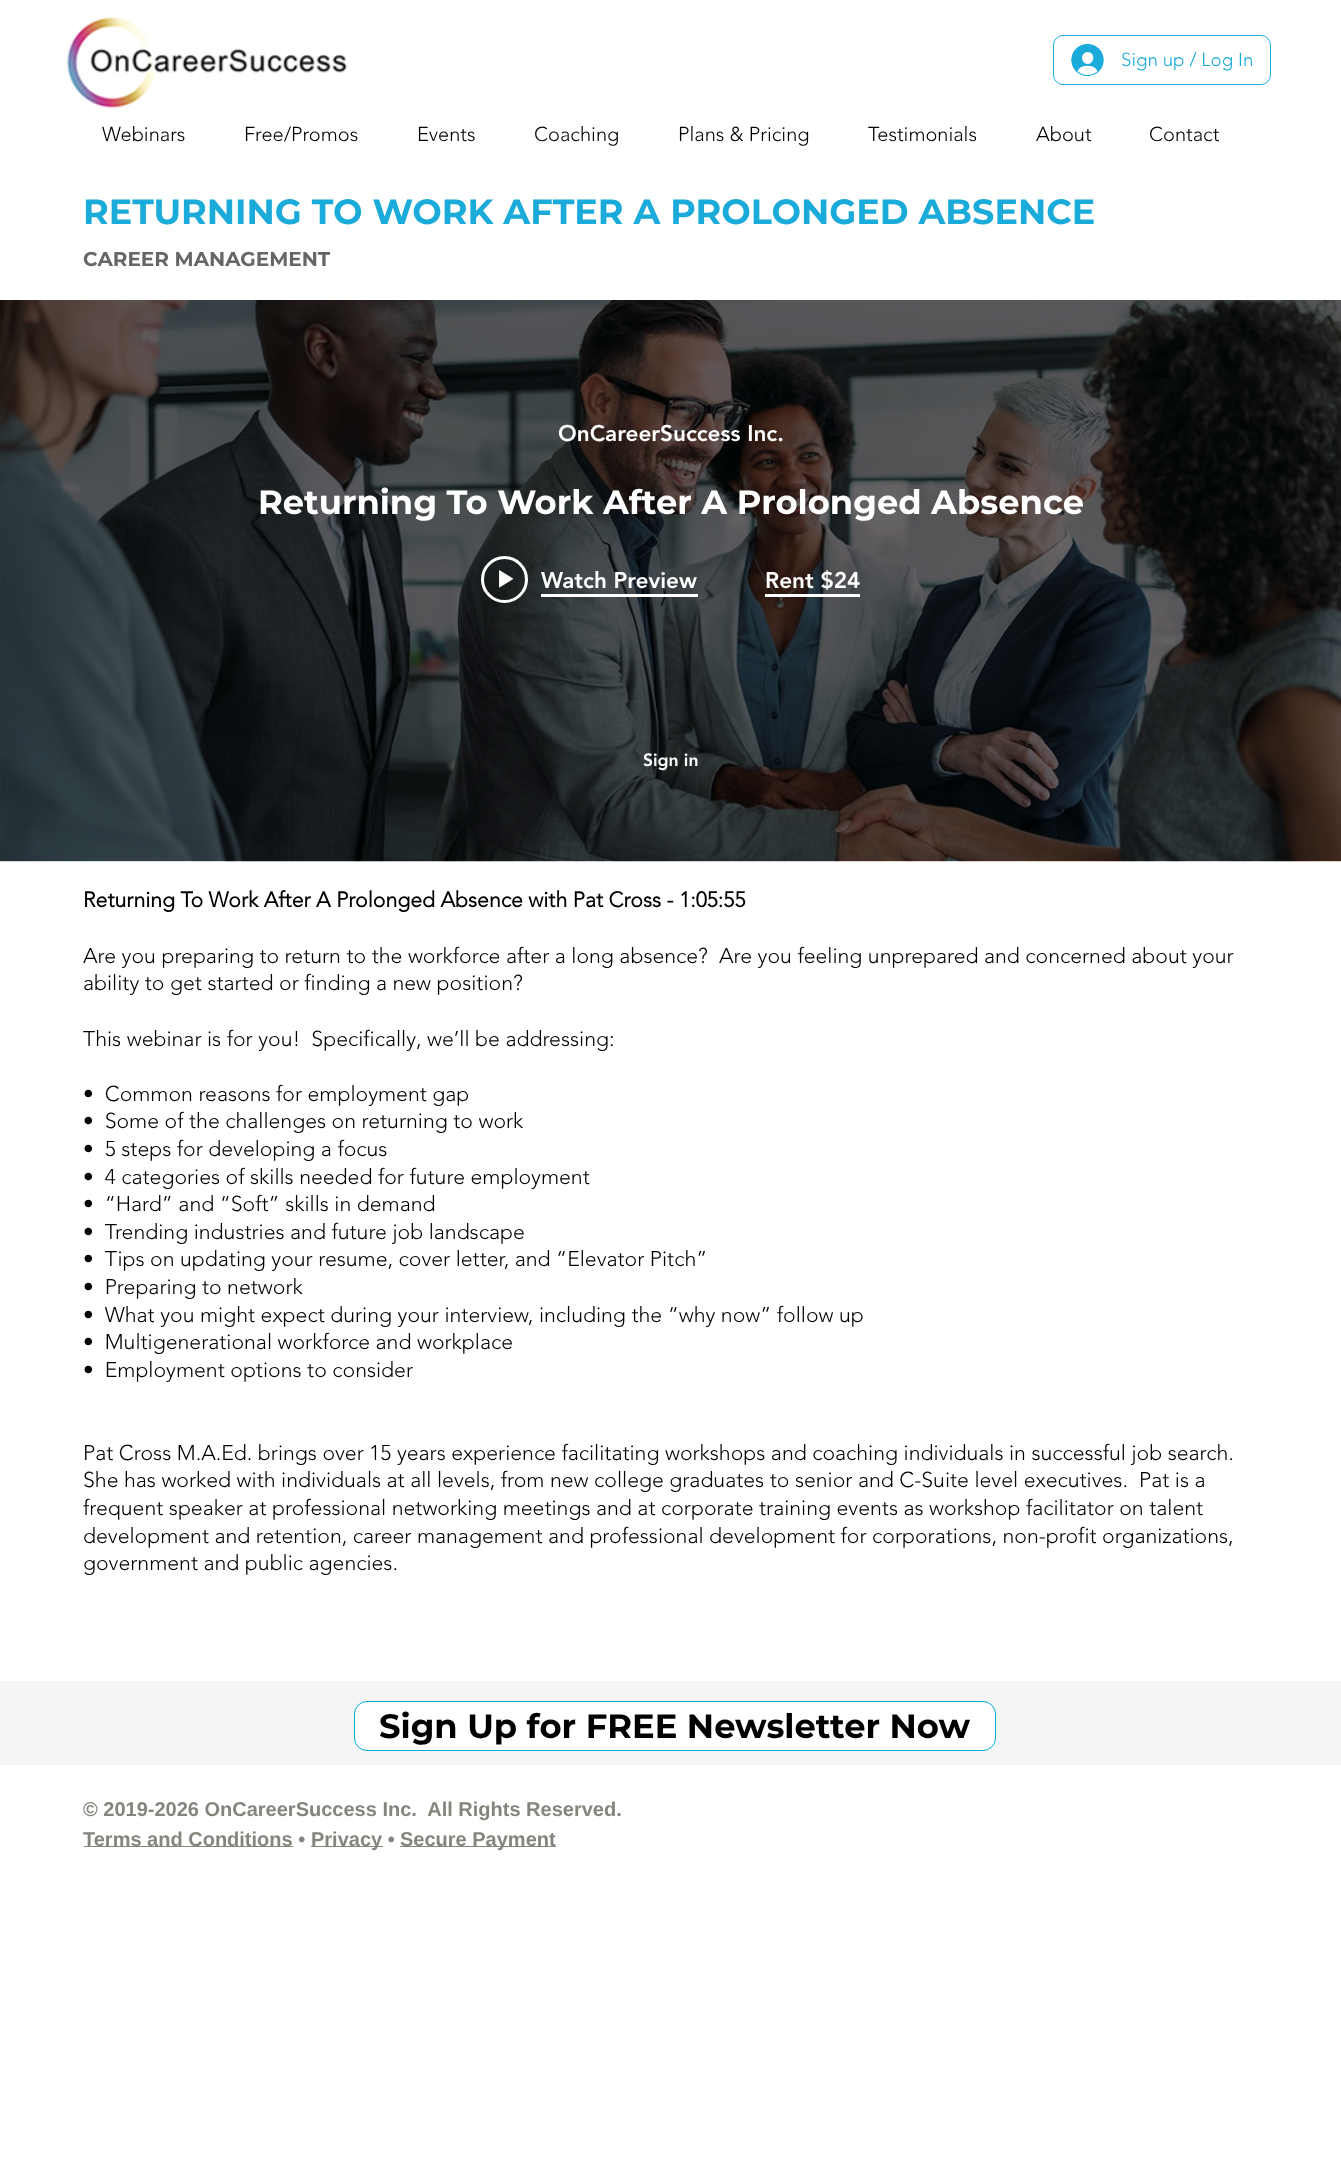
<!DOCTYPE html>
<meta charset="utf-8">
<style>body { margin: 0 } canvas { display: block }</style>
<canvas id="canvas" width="1341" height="2167"></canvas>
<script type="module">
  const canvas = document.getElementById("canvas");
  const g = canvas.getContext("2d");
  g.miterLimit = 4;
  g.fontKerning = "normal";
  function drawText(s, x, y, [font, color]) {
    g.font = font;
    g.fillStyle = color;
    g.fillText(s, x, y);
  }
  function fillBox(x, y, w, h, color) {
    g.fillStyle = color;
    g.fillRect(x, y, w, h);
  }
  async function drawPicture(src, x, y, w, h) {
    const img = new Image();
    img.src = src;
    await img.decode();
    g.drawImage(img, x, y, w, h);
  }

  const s1 = ["300 18.75px 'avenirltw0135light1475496'", "#1BABDA"];
  const s2 = ["300 20px 'avenirltw0135light1475496'", "#000000"];
  const s3 = ["bold 35px Montserrat", "#1BABDA"];
  const s4 = ["bold 20px Montserrat", "#666666"];
  const s5 = ["900 22.5px 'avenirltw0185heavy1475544'", "#FFFFFF"];
  const s6 = ["bold 33.75px Montserrat", "#FFFFFF"];
  const s7 = ["900 17.5px 'avenirltw0185heavy1475544'", "#FFFFFF"];
  const s8 = ["bold 21.25px 'avenirltw0135light1475496'", "#000000"];
  const s9 = ["300 21.25px 'avenirltw0135light1475496'", "#000000"];
  const s10 = ["bold 33.75px Montserrat", "#000000"];
  const s11 = ["bold 20px Liberation Sans", "#85857E"];

  fillBox(0, 0, 1341, 2167, "#FFFFFF");
  await drawPicture("pic1.png", 66, 17, 282, 92);
  g.beginPath();
  g.roundRect(1053.5, 35.5, 217, 49, 9.5);
  g.strokeStyle = "#1BABDA";
  g.stroke();
  await drawPicture("pic2.png", 1071, 44, 33, 32);
  drawText("Sign up / Log In", 1121, 66, s1);
  drawText("Webinars", 102, 141, s2);
  drawText("Free/Promos", 244, 141, s2);
  drawText("Events", 417, 141, s2);
  drawText("Coaching", 534, 141, s2);
  drawText("Plans & Pricing", 678, 141, s2);
  drawText("Testimonials", 868, 141, s2);
  drawText("About", 1036, 141, s2);
  drawText("Contact", 1149, 141, s2);
  drawText("RETURNING TO WORK AFTER A PROLONGED ABSENCE", 83, 224, s3);
  drawText("CAREER MANAGEMENT", 83, 266, s4);
  await drawPicture("pic3.png", 0, 861, 1341, 1);
  await drawPicture("pic4.png", 0, 300, 1341, 562);
  drawText("OnCareerSuccess Inc.", 558, 441, s5);
  drawText("Returning To Work After A Prolonged Absence", 258, 514, s6);
  g.beginPath();
  g.arc(504.5, 579.5, 22, 0, Math.PI * 2);
  g.strokeStyle = "#FFFFFF";
  g.lineWidth = 3;
  g.stroke();
  await drawPicture("pic5.png", 499, 570, 15, 18);
  fillBox(541, 594, 157, 3, "#FFFFFF");
  drawText("Watch Preview", 541, 588, s5);
  fillBox(765, 594, 95, 3, "#FFFFFF");
  drawText("Rent $24", 765, 588, s5);
  drawText("Sign in", 643, 766, s7);
  drawText("Returning To Work After A Prolonged Absence with Pat Cross - 1:05:55", 83, 907, s8);
  drawText("Are you preparing to return to the workforce after a long absence?  Are you feeling unprepared and concerned about your", 83, 963, s9);
  drawText("ability to get started or finding a new position?", 83, 990, s9);
  drawText("This webinar is for you!  Specifically, we’ll be addressing:", 83, 1046, s9);
  drawText("•  Common reasons for employment gap", 83, 1101, s9);
  drawText("•  Some of the challenges on returning to work", 83, 1128, s9);
  drawText("•  5 steps for developing a focus", 83, 1156, s9);
  drawText("•  4 categories of skills needed for future employment", 83, 1184, s9);
  drawText("•  “Hard” and “Soft” skills in demand", 83, 1211, s9);
  drawText("•  Trending industries and future job landscape", 83, 1239, s9);
  drawText("•  Tips on updating your resume, cover letter, and “Elevator Pitch”", 83, 1266, s9);
  drawText("•  Preparing to network", 83, 1294, s9);
  drawText("•  What you might expect during your interview, including the “why now” follow up", 83, 1322, s9);
  drawText("•  Multigenerational workforce and workplace", 83, 1349, s9);
  drawText("•  Employment options to consider", 83, 1377, s9);
  drawText("Pat Cross M.A.Ed. brings over 15 years experience facilitating workshops and coaching individuals in successful job search.", 83, 1460, s9);
  drawText("She has worked with individuals at all levels, from new college graduates to senior and C-Suite level executives.  Pat is a", 83, 1487, s9);
  drawText("frequent speaker at professional networking meetings and at corporate training events as workshop facilitator on talent", 83, 1515, s9);
  drawText("development and retention, career management and professional development for corporations, non-profit organizations,", 83, 1543, s9);
  drawText("government and public agencies.", 83, 1570, s9);
  fillBox(0, 1681, 1341, 84, "#F5F5F5");
  g.fillStyle = "#FFFFFF";
  g.beginPath();
  g.roundRect(354.5, 1701.5, 641, 49, 12.5);
  g.fill();
  g.strokeStyle = "#00ACD6";
  g.lineWidth = 1;
  g.stroke();
  drawText("Sign Up for FREE Newsletter Now", 379, 1738, s10);
  drawText("© 2019-2026 OnCareerSuccess Inc.  All Rights Reserved.", 83, 1816, s11);
  fillBox(84, 1846, 209, 1, "#85857E");
  drawText("Terms and Conditions •", 83, 1846, s11);
  fillBox(311, 1846, 72, 1, "#85857E");
  drawText("Privacy •", 311, 1846, s11);
  fillBox(400, 1846, 156, 1, "#85857E");
  drawText("Secure Payment", 400, 1846, s11);
</script>
